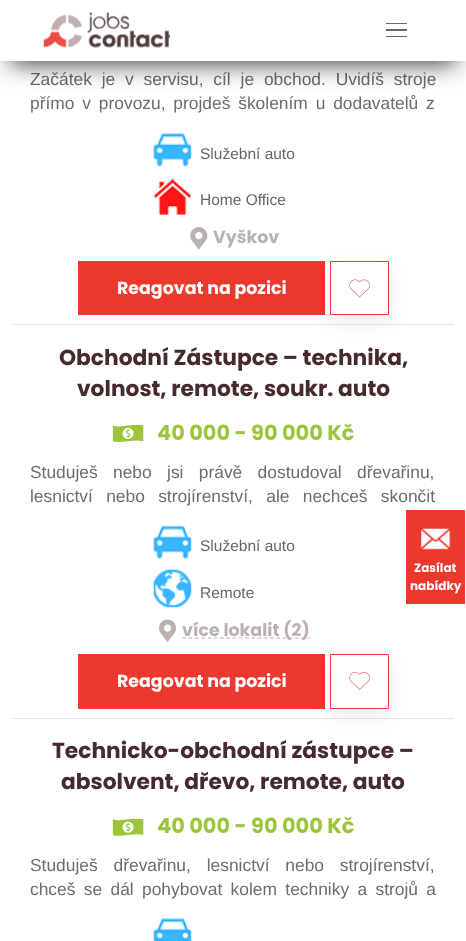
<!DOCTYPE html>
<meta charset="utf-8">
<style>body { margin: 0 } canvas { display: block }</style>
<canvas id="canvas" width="466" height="941"></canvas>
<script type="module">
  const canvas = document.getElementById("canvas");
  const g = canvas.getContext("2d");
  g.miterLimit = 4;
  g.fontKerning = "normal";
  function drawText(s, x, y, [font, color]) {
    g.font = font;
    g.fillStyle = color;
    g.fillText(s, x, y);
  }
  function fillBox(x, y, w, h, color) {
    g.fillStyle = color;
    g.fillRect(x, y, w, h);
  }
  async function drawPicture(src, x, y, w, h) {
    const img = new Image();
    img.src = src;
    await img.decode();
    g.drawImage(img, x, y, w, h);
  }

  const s1 = ["17.4px Liberation Sans", "#716B6B"];
  const s2 = ["15.5px Liberation Sans", "#666666"];
  const s3 = ["bold 17.4px Poppins", "#BBB1B1"];
  const s4 = ["bold 17.4px Poppins", "#FFFFFF"];
  const s5 = ["bold 21.75px Poppins", "#472A2B"];
  const s6 = ["bold 20.9px Poppins", "#9CC53C"];
  const s7 = ["bold 12px Poppins", "#FFFFFF"];

  fillBox(0, 0, 466, 941, "#FFFFFF");
  fillBox(13, 324, 441, 1, "#E6E2E2");
  g.wordSpacing = "5px";
  drawText("Začátek je v servisu, cíl je obchod. Uvidíš stroje", 30, 85, s1);
  g.wordSpacing = "3px";
  drawText("přímo v provozu, projdeš školením u dodavatelů z", 30, 109, s1);
  await drawPicture("pic1.png", 153, 133, 39, 34);
  g.wordSpacing = "0px";
  drawText("Služební auto", 200, 159, s2);
  await drawPicture("pic2.png", 153, 178, 39, 37);
  drawText("Home Office", 200, 205, s2);
  await drawPicture("pic3.png", 190, 227, 18, 23);
  drawText("Vyškov", 213, 243, s3);
  fillBox(78, 261, 247, 54, "#ED382E");
  drawText("Reagovat na pozici", 117, 294, s4);
  g.fillStyle = "rgba(0, 0, 0, 0.08)";
  g.filter = "blur(9.5px)";
  g.beginPath();
  g.rect(330, 268, 59, 53);
  g.fill();
  g.filter = "none";
  g.fillStyle = "#FFFFFF";
  g.beginPath();
  g.rect(330.5, 261.5, 58, 53);
  g.fill();
  g.strokeStyle = "#ED382E";
  g.stroke();
  await drawPicture("pic4.png", 349, 279, 21, 19);
  fillBox(13, 718, 441, 1, "#E6E2E2");
  drawText("Obchodní Zástupce – technika,", 59, 365, s5);
  drawText("volnost, remote, soukr. auto", 77, 396, s5);
  await drawPicture("pic5.png", 112, 425, 32, 17);
  drawText("40 000 - 90 000 Kč", 157, 440, s6);
  g.wordSpacing = "10.5px";
  drawText("Studuješ nebo jsi právě dostudoval dřevařinu,", 30, 478, s1);
  g.wordSpacing = "8.5px";
  drawText("lesnictví nebo strojírenství, ale nechceš skončit", 30, 502, s1);
  await drawPicture("pic6.png", 153, 525, 39, 34);
  g.wordSpacing = "0px";
  drawText("Služební auto", 200, 551, s2);
  await drawPicture("pic7.png", 153, 569, 39, 39);
  drawText("Remote", 200, 598, s2);
  await drawPicture("pic8.png", 159, 619, 17, 23);
  g.beginPath();
  g.moveTo(182.5, 638);
  g.lineTo(310, 638);
  g.strokeStyle = "#BBB1B1";
  g.lineWidth = 1.2;
  g.setLineDash([3.75, 2.5]);
  g.stroke();
  drawText("více lokalit (2)", 182, 636, s3);
  fillBox(78, 654, 247, 55, "#ED382E");
  drawText("Reagovat na pozici", 117, 687, s4);
  g.fillStyle = "rgba(0, 0, 0, 0.08)";
  g.filter = "blur(9.5px)";
  g.beginPath();
  g.rect(330, 660, 59, 55);
  g.fill();
  g.filter = "none";
  g.fillStyle = "#FFFFFF";
  g.beginPath();
  g.rect(330.5, 654.5, 58, 54);
  g.fill();
  g.strokeStyle = "#ED382E";
  g.lineWidth = 1;
  g.setLineDash([]);
  g.stroke();
  await drawPicture("pic9.png", 349, 672, 21, 18);
  drawText("Technicko-obchodní zástupce –", 52, 758, s5);
  drawText("absolvent, dřevo, remote, auto", 61, 789, s5);
  await drawPicture("pic10.png", 112, 818, 32, 18);
  drawText("40 000 - 90 000 Kč", 157, 833, s6);
  g.wordSpacing = "11px";
  drawText("Studuješ dřevařinu, lesnictví nebo strojírenství,", 30, 871, s1);
  g.wordSpacing = "3.5px";
  drawText("chceš se dál pohybovat kolem techniky a strojů a", 30, 895, s1);
  await drawPicture("pic11.png", 153, 918, 39, 23);
  g.fillStyle = "rgba(0, 0, 0, 0.75)";
  g.filter = "blur(12.5px)";
  g.beginPath();
  g.rect(10, 23, 446, 41);
  g.fill();
  g.filter = "none";
  fillBox(0, 0, 466, 61, "#FFFFFF");
  await drawPicture("pic12.png", 43, 12, 128, 36);
  fillBox(386, 23, 21, 1, "#666666");
  fillBox(386, 29, 21, 2, "#666666");
  fillBox(386, 36, 21, 1, "#666666");
  fillBox(406, 510, 59, 94, "#ED382E");
  await drawPicture("pic13.png", 421, 528, 30, 22);
  g.wordSpacing = "0px";
  drawText("Zasílat", 414, 572, s7);
  drawText("nabídky", 410, 590, s7);
</script>
